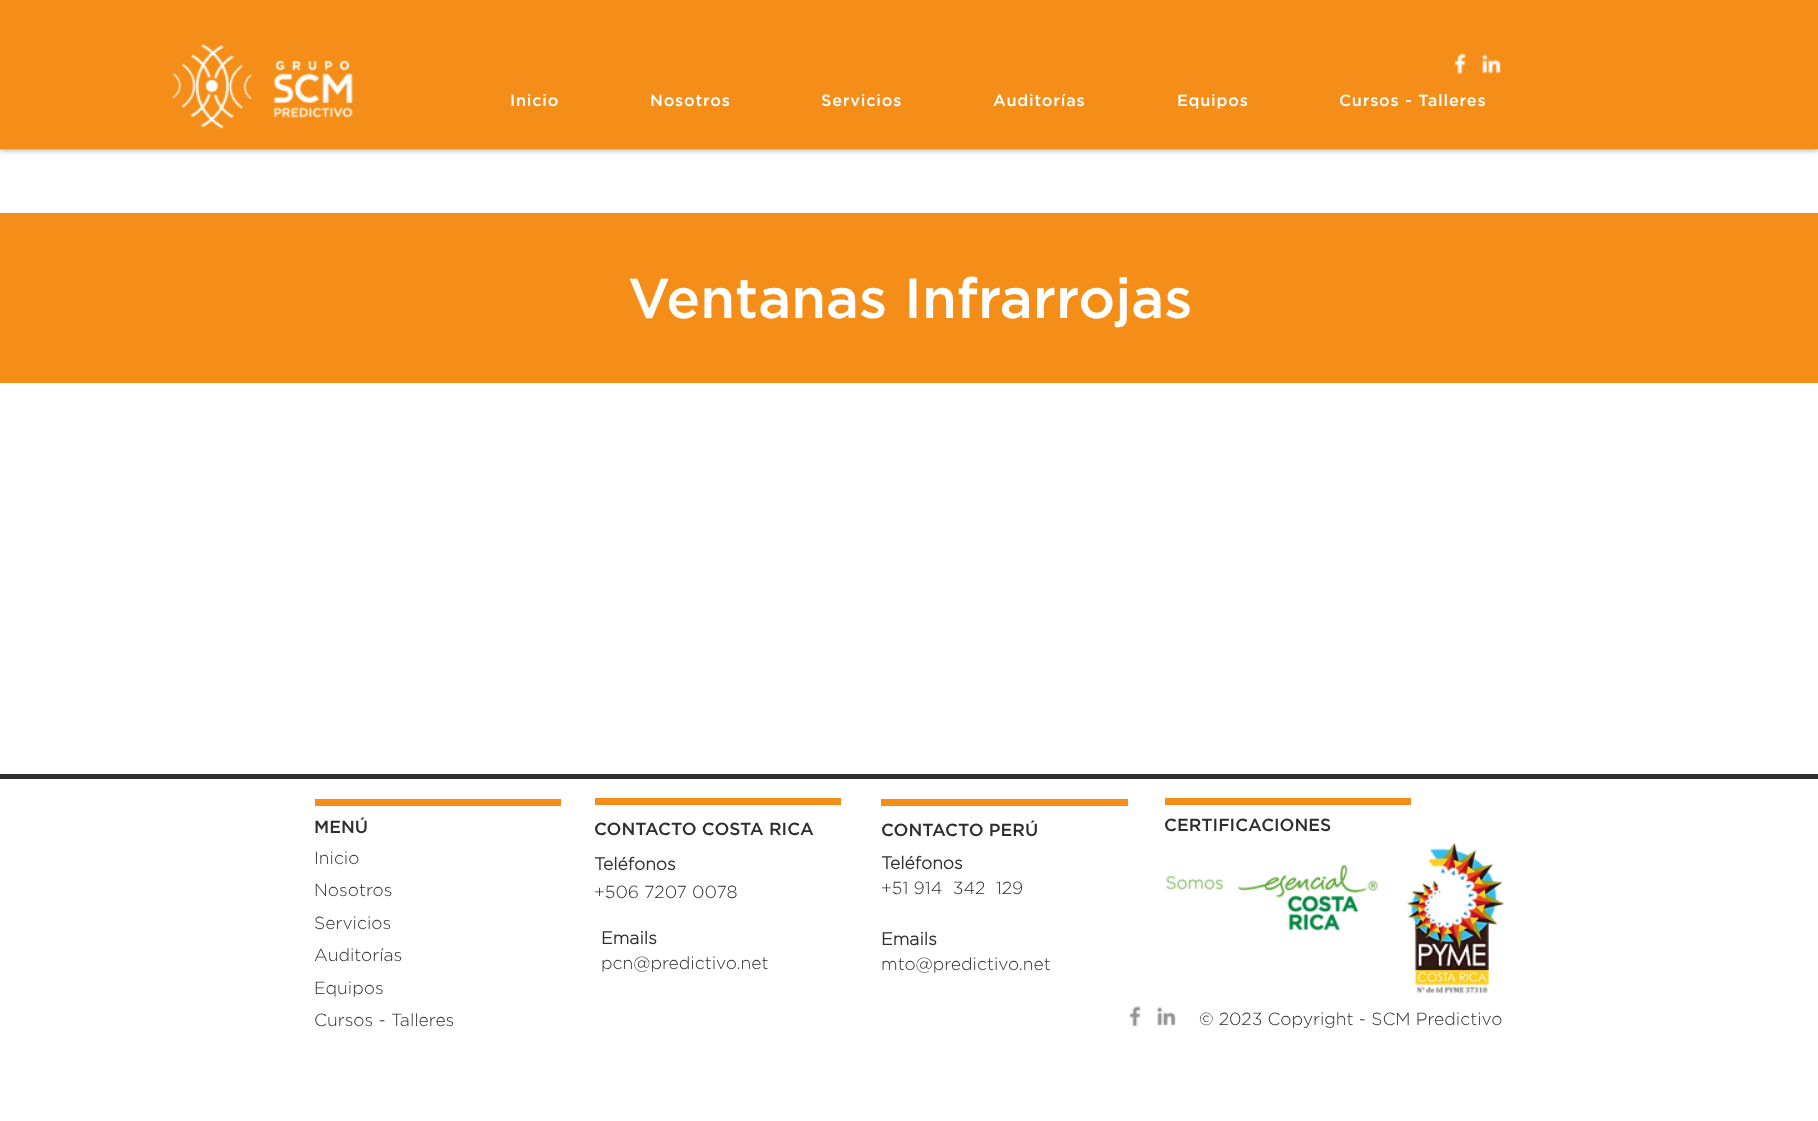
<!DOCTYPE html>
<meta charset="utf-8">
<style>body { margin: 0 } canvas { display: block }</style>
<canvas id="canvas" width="1818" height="1121"></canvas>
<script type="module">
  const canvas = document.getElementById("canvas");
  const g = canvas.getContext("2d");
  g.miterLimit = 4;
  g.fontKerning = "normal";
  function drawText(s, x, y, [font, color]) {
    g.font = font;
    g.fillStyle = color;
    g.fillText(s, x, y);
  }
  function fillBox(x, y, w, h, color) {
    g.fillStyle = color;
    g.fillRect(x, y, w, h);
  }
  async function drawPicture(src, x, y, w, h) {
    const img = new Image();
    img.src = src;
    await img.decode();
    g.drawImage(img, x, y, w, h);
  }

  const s1 = ["500 16.25px Gotham", "#FFFFFF"];
  const s2 = ["500 56.25px Gotham", "#FFFFFF"];
  const s3 = ["500 17.5px Gotham", "#2F2E2E"];
  const s4 = ["300 17.5px Gotham", "#2F2E2E"];
  const s5 = ["bold 17.5px Gotham", "#2F2E2E"];

  fillBox(0, 0, 1818, 1121, "#FFFFFF");
  g.fillStyle = "rgba(0, 0, 0, 0.5)";
  g.filter = "blur(3px)";
  g.beginPath();
  g.rect(0, 0, 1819, 149);
  g.fill();
  g.filter = "none";
  fillBox(0, 0, 1818, 149, "#F58E18");
  await drawPicture("pic1.png", 172, 43, 181, 86);
  await drawPicture("pic2.png", 1454, 53, 12, 22);
  await drawPicture("pic3.png", 1482, 54, 19, 20);
  g.letterSpacing = "0.8px";
  drawText("Inicio", 510, 106, s1);
  drawText("Nosotros", 650, 106, s1);
  drawText("Servicios", 821, 106, s1);
  drawText("Auditorías", 993, 106, s1);
  drawText("Equipos", 1177, 106, s1);
  drawText("Cursos - Talleres", 1339, 106, s1);
  fillBox(0, 213, 1818, 170, "#F58E18");
  g.letterSpacing = "0px";
  drawText("Ventanas Infrarrojas", 628, 318, s2);
  fillBox(0, 774, 1818, 5, "#2F2E2E");
  fillBox(595, 798, 246, 7, "#F58E18");
  fillBox(315, 799, 246, 7, "#F58E18");
  drawText("MENÚ", 314, 833, s3);
  drawText("Inicio", 314, 864, s4);
  drawText("Nosotros", 314, 896, s4);
  drawText("Servicios", 314, 929, s4);
  drawText("Auditorías", 314, 961, s4);
  drawText("Equipos", 314, 994, s4);
  drawText("Cursos - Talleres", 314, 1026, s4);
  drawText("CONTACTO COSTA RICA", 594, 835, s3);
  fillBox(881, 799, 247, 7, "#F58E18");
  drawText("CONTACTO PERÚ", 881, 836, s3);
  drawText("Teléfonos", 881, 869, s5);
  drawText("+51 914  342  129", 881, 894, s4);
  drawText("Emails", 881, 945, s5);
  drawText("mto@predictivo.net", 881, 970, s4);
  fillBox(1165, 798, 246, 7, "#F58E18");
  drawText("CERTIFICACIONES", 1164, 831, s3);
  await drawPicture("pic4.png", 1166, 864, 213, 67);
  await drawPicture("pic5.png", 1407, 842, 97, 152);
  drawText("Teléfonos", 594, 870, s5);
  drawText("+506 7207 0078", 594, 898, s4);
  drawText("Emails", 601, 944, s5);
  drawText("pcn@predictivo.net", 601, 969, s4);
  await drawPicture("pic6.png", 1129, 1006, 12, 21);
  await drawPicture("pic7.png", 1157, 1007, 19, 19);
  drawText("© 2023 Copyright - SCM Predictivo", 1199, 1025, s4);
</script>
